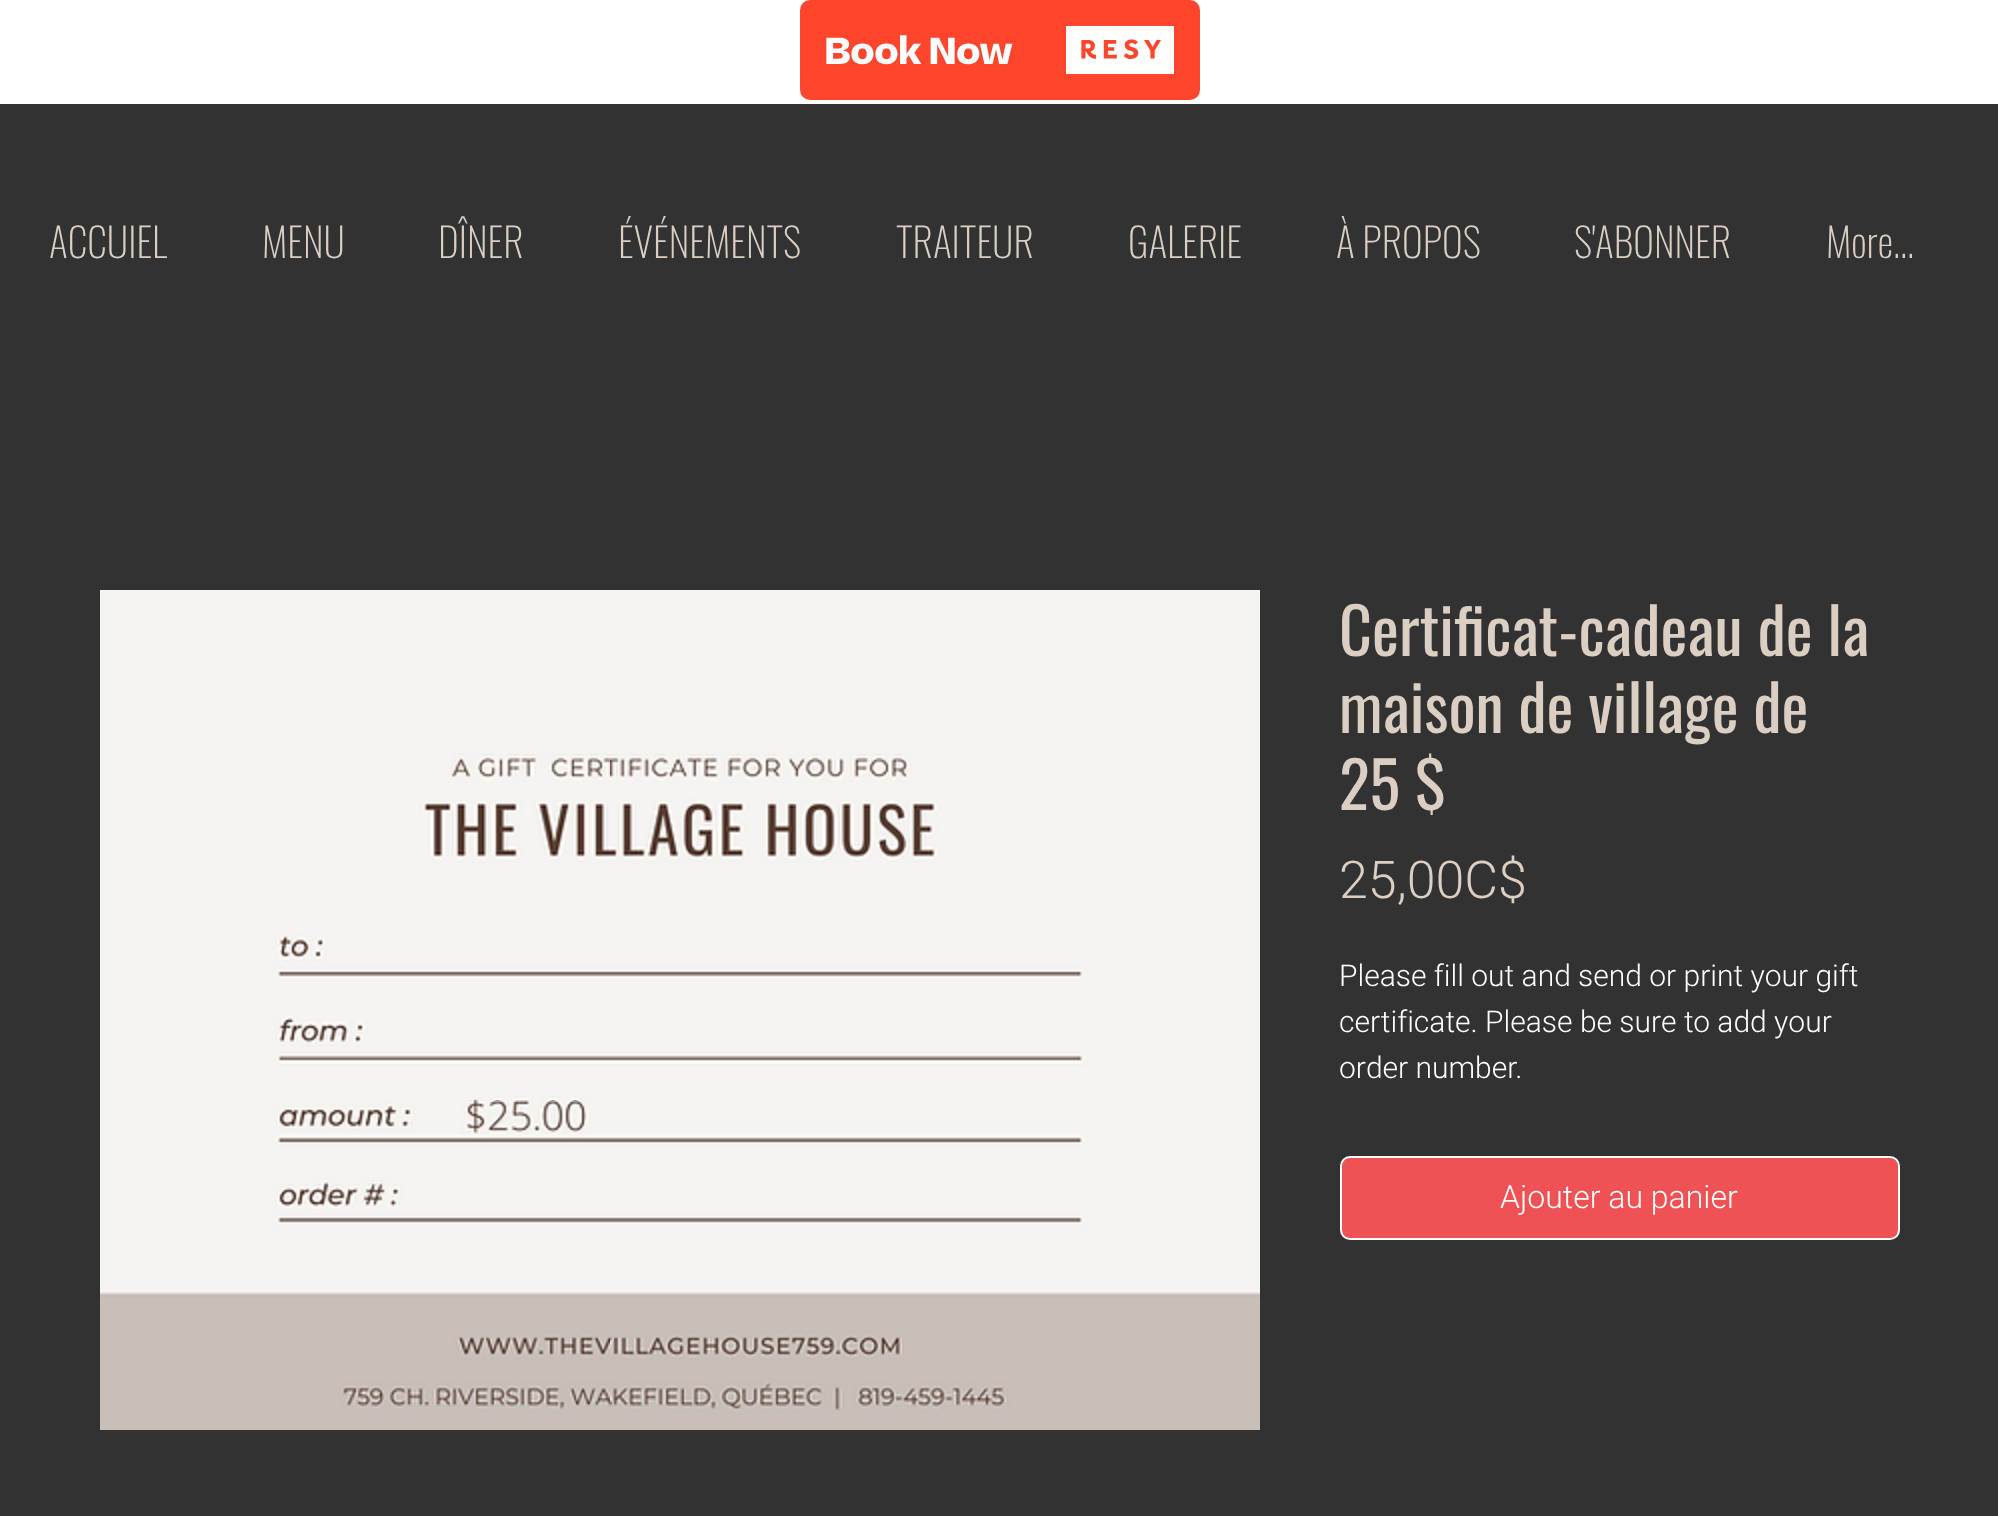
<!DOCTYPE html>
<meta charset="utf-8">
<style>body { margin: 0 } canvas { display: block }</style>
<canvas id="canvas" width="1998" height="1516"></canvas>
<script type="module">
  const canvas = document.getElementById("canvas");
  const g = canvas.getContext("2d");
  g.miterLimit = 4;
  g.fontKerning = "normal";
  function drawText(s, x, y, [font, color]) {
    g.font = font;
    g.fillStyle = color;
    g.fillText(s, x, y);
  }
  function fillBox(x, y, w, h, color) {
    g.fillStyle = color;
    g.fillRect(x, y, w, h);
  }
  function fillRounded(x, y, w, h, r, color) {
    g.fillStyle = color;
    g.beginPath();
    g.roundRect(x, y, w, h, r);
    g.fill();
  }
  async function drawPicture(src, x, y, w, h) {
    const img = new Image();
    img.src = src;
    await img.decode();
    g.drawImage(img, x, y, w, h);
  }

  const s1 = ["200 40px Oswald", "#DBCFC4"];
  const s2 = ["64px Oswald", "#DBCFC4"];
  const s3 = ["300 52px Heebo", "#DBCFC4"];
  const s4 = ["300 30px Heebo", "#FFFFFF"];
  const s5 = ["300 32px Heebo", "#FFFFFF"];

  fillBox(0, 0, 1998, 1516, "#FFFFFF");
  fillRounded(800, 0, 400, 100, 10, "#FF462D");
  await drawPicture("pic1.png", 826, 26, 348, 48);
  fillBox(0, 104, 1998, 1412, "#323232");
  drawText("ACCUIEL", 49, 258, s1);
  drawText("MENU", 262, 258, s1);
  drawText("DÎNER", 438, 258, s1);
  drawText("ÉVÉNEMENTS", 618, 258, s1);
  drawText("TRAITEUR", 896, 258, s1);
  drawText("GALERIE", 1128, 258, s1);
  drawText("À PROPOS", 1336, 258, s1);
  drawText("S'ABONNER", 1574, 258, s1);
  drawText("More...", 1826, 258, s1);
  await drawPicture("pic2.png", 100, 590, 1160, 840);
  drawText("Certificat-cadeau de la", 1339, 656, s2);
  drawText("maison de village de", 1339, 733, s2);
  drawText("25 $", 1339, 810, s2);
  drawText("25,00C$", 1339, 898, s3);
  drawText("Please fill out and send or print your gift", 1339, 986, s4);
  drawText("certificate. Please be sure to add your", 1339, 1032, s4);
  drawText("order number.", 1339, 1078, s4);
  g.fillStyle = "#F05154";
  g.beginPath();
  g.roundRect(1341, 1157, 558, 82, 9);
  g.fill();
  g.strokeStyle = "#FFFFFF";
  g.lineWidth = 2;
  g.stroke();
  drawText("Ajouter au panier", 1500, 1208, s5);
</script>
